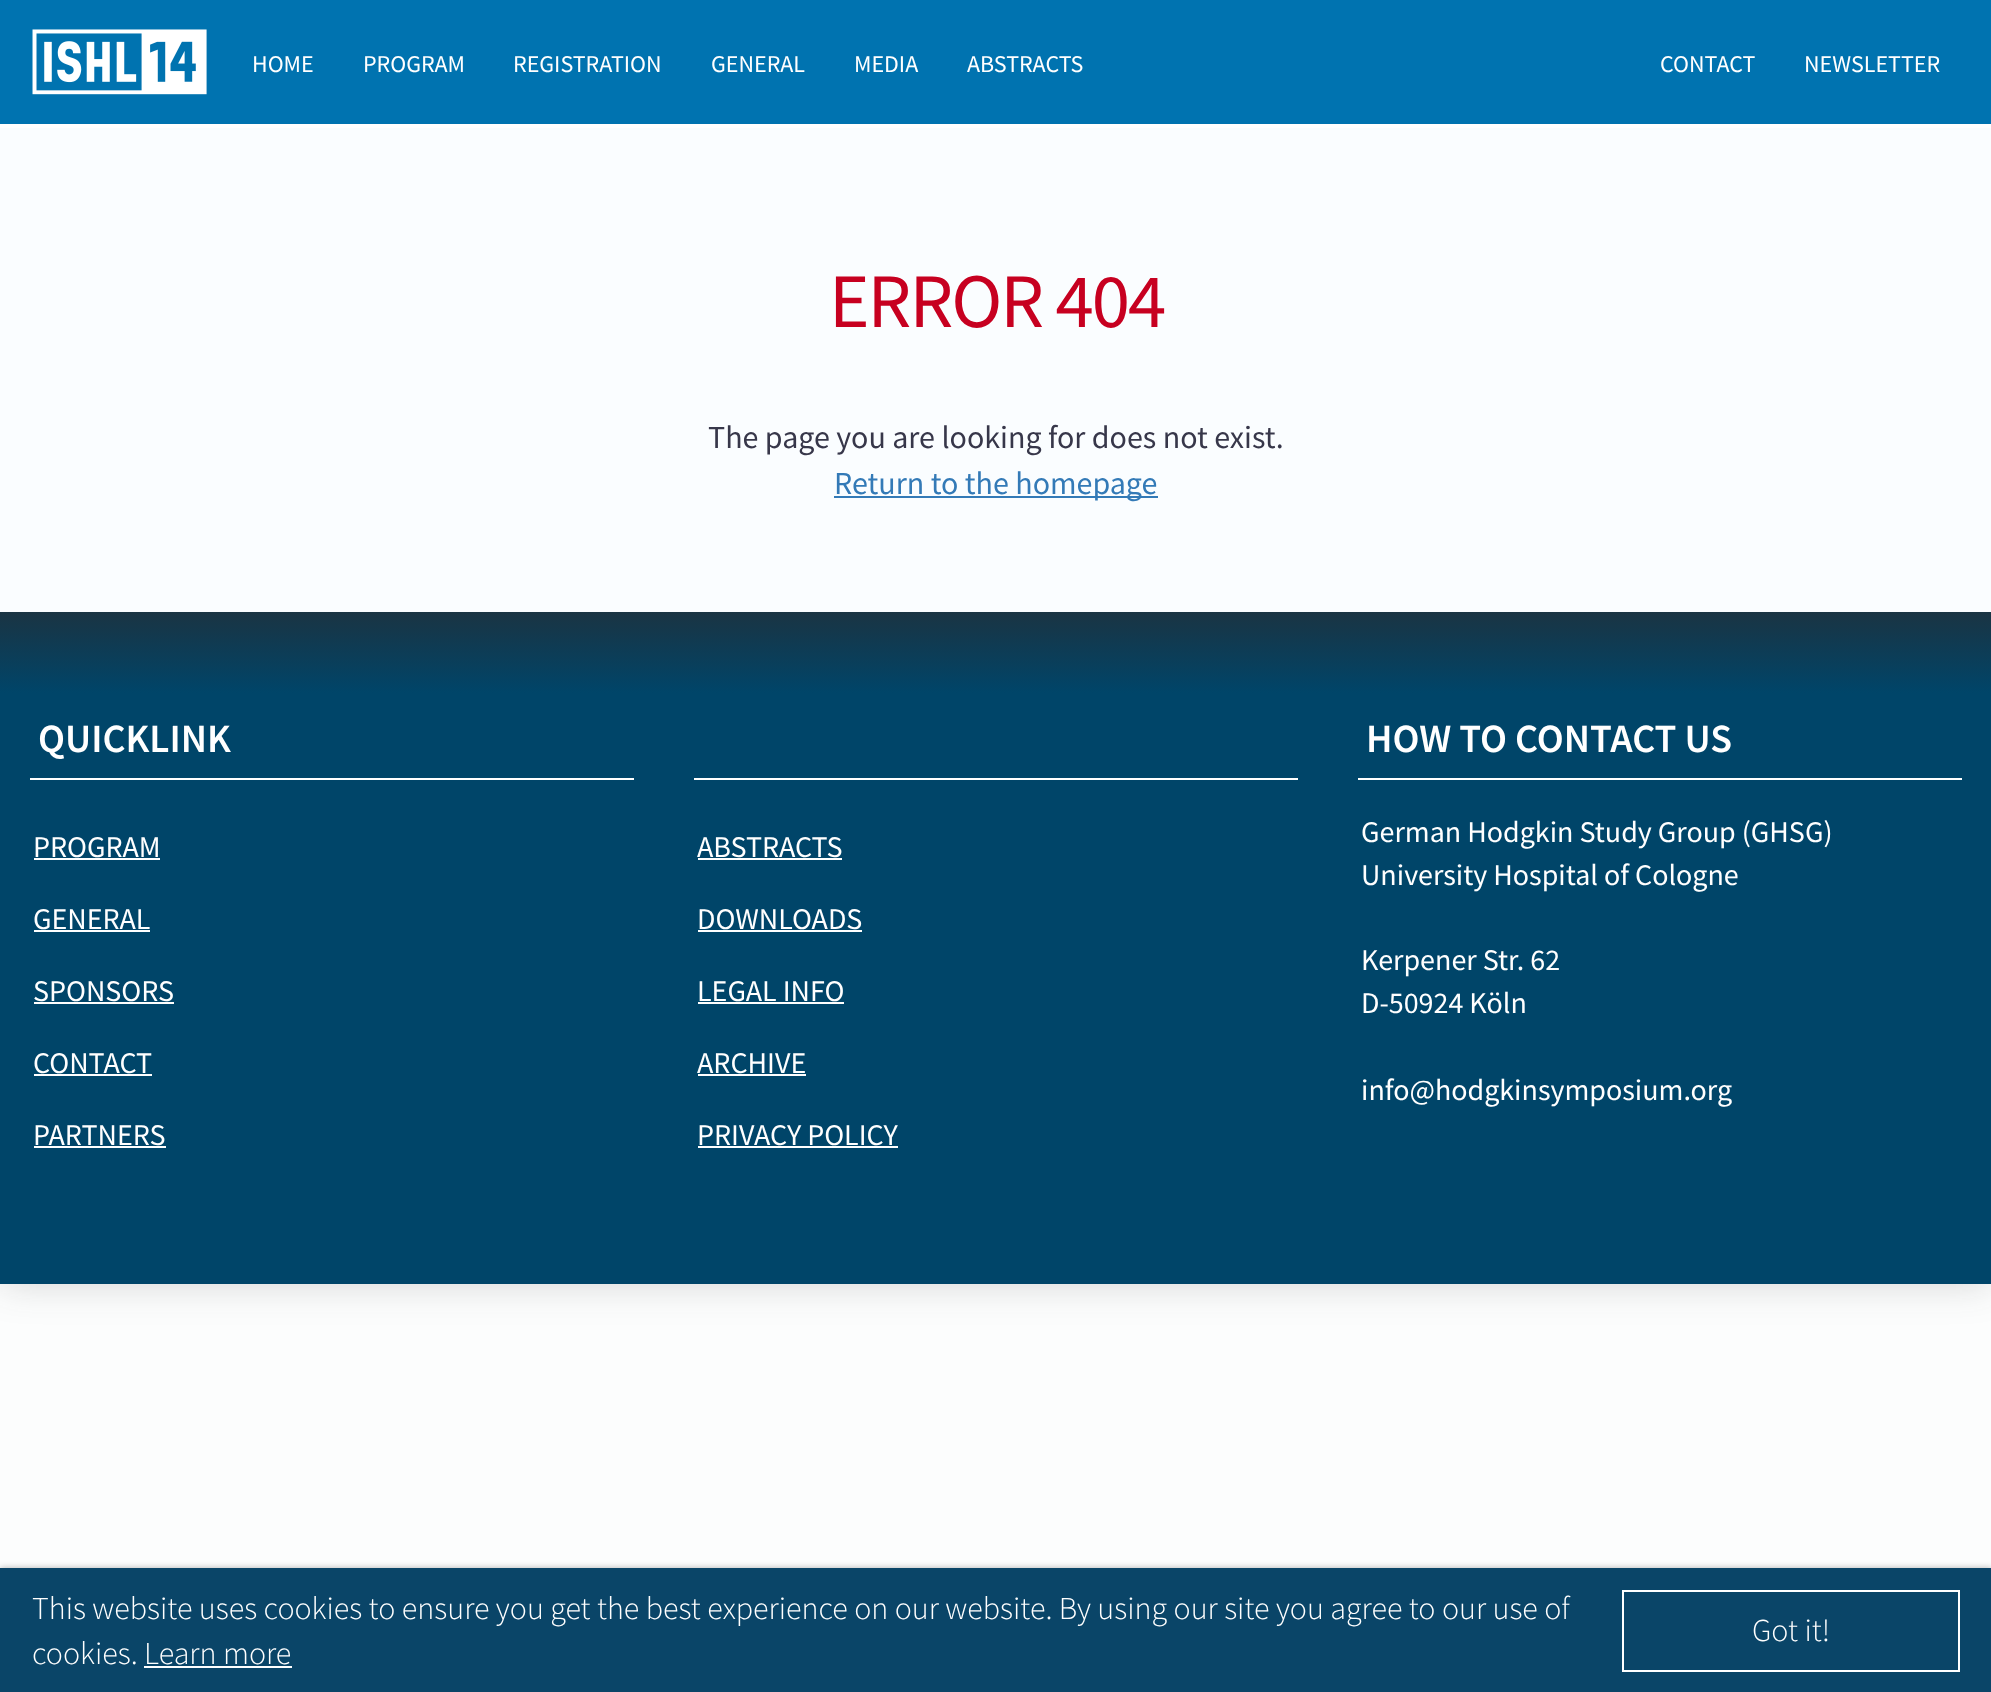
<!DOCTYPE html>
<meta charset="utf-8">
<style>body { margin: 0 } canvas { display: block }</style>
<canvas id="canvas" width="1991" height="1692"></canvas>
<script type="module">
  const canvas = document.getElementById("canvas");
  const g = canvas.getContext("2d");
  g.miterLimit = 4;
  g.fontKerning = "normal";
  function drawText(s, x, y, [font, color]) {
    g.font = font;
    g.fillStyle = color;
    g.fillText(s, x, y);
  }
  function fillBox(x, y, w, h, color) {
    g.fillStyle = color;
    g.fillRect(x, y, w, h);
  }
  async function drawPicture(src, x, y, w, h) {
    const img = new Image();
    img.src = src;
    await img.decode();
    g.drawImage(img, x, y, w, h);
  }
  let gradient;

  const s1 = ["24px Source Sans Pro", "#FFFFFF"];
  const s2 = ["77px Source Sans Pro", "#C70020"];
  const s3 = ["32px Source Sans Pro", "#37374A"];
  const s4 = ["32px Source Sans Pro", "#337AB7"];
  const s5 = ["600 40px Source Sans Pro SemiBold", "#FFFFFF"];
  const s6 = ["30px Source Sans Pro", "#FFFFFF"];
  const s7 = ["300 32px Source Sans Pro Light", "#FFFFFF"];

  fillBox(0, 0, 1991, 1692, "#FCFDFD");
  g.fillStyle = "rgba(40, 40, 40, 0.2)";
  g.filter = "blur(20px)";
  g.beginPath();
  g.rect(0, 118, 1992, 1164);
  g.fill();
  g.filter = "none";
  fillBox(0, 0, 1991, 124, "#0073B0");
  fillBox(0, 124, 1991, 4, "#FFFFFF");
  await drawPicture("pic1.png", 32, 29, 175, 66);
  drawText("HOME", 252, 72, s1);
  drawText("PROGRAM", 363, 72, s1);
  drawText("REGISTRATION", 513, 72, s1);
  drawText("GENERAL", 711, 72, s1);
  drawText("MEDIA", 854, 72, s1);
  drawText("ABSTRACTS", 967, 72, s1);
  drawText("CONTACT", 1660, 72, s1);
  drawText("NEWSLETTER", 1804, 72, s1);
  fillBox(0, 128, 1991, 484, "#FAFDFF");
  g.letterSpacing = "-2px";
  drawText("ERROR 404", 829, 327, s2);
  g.letterSpacing = "0px";
  drawText("The page you are looking for does not exist.", 708, 448, s3);
  fillBox(834, 496, 324, 2, "#337AB7");
  drawText("Return to the homepage", 834, 494, s4);
  gradient = g.createLinearGradient(996, 612, 996, 1284);
  gradient.addColorStop(0, "#1A3443");
  gradient.addColorStop(0.12, "#004569");
  g.fillStyle = gradient;
  g.fillRect(0, 612, 1991, 672);
  fillBox(30, 778, 604, 2, "#FFFFFF");
  drawText("QUICKLINK", 38, 752, s5);
  drawText("PROGRAM", 33, 857, s6);
  fillBox(34, 858, 126, 2, "#FFFFFF");
  drawText("GENERAL", 33, 929, s6);
  fillBox(34, 930, 116, 2, "#FFFFFF");
  drawText("SPONSORS", 33, 1001, s6);
  fillBox(34, 1002, 140, 2, "#FFFFFF");
  drawText("CONTACT", 33, 1073, s6);
  fillBox(34, 1074, 118, 2, "#FFFFFF");
  drawText("PARTNERS", 33, 1145, s6);
  fillBox(34, 1146, 132, 2, "#FFFFFF");
  fillBox(694, 778, 604, 2, "#FFFFFF");
  drawText("ABSTRACTS", 697, 857, s6);
  fillBox(698, 858, 144, 2, "#FFFFFF");
  drawText("DOWNLOADS", 697, 929, s6);
  fillBox(698, 930, 164, 2, "#FFFFFF");
  drawText("LEGAL INFO", 697, 1001, s6);
  fillBox(698, 1002, 146, 2, "#FFFFFF");
  drawText("ARCHIVE", 697, 1073, s6);
  fillBox(698, 1074, 108, 2, "#FFFFFF");
  drawText("PRIVACY POLICY", 697, 1145, s6);
  fillBox(698, 1146, 200, 2, "#FFFFFF");
  fillBox(1358, 778, 604, 2, "#FFFFFF");
  drawText("HOW TO CONTACT US", 1366, 752, s5);
  drawText("German Hodgkin Study Group (GHSG)", 1361, 842, s6);
  drawText("University Hospital of Cologne", 1361, 885, s6);
  drawText("Kerpener Str. 62", 1361, 970, s6);
  drawText("D-50924 Köln", 1361, 1013, s6);
  drawText("info@hodgkinsymposium.org", 1361, 1100, s6);
  g.fillStyle = "rgba(0, 0, 0, 0.3)";
  g.filter = "blur(3px)";
  g.beginPath();
  g.rect(0, 1568, 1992, 124);
  g.fill();
  g.filter = "none";
  fillBox(0, 1568, 1991, 124, "#0A4568");
  drawText("This website uses cookies to ensure you get the best experience on our website. By using our site you agree to our use of", 32, 1619, s7);
  drawText("cookies. Learn more", 32, 1664, s7);
  fillBox(144, 1666, 148, 2, "#FFFFFF");
  g.strokeStyle = "#FFFFFF";
  g.lineWidth = 2;
  g.strokeRect(1623, 1591, 336, 80);
  drawText("Got it!", 1752, 1641, s7);
</script>
